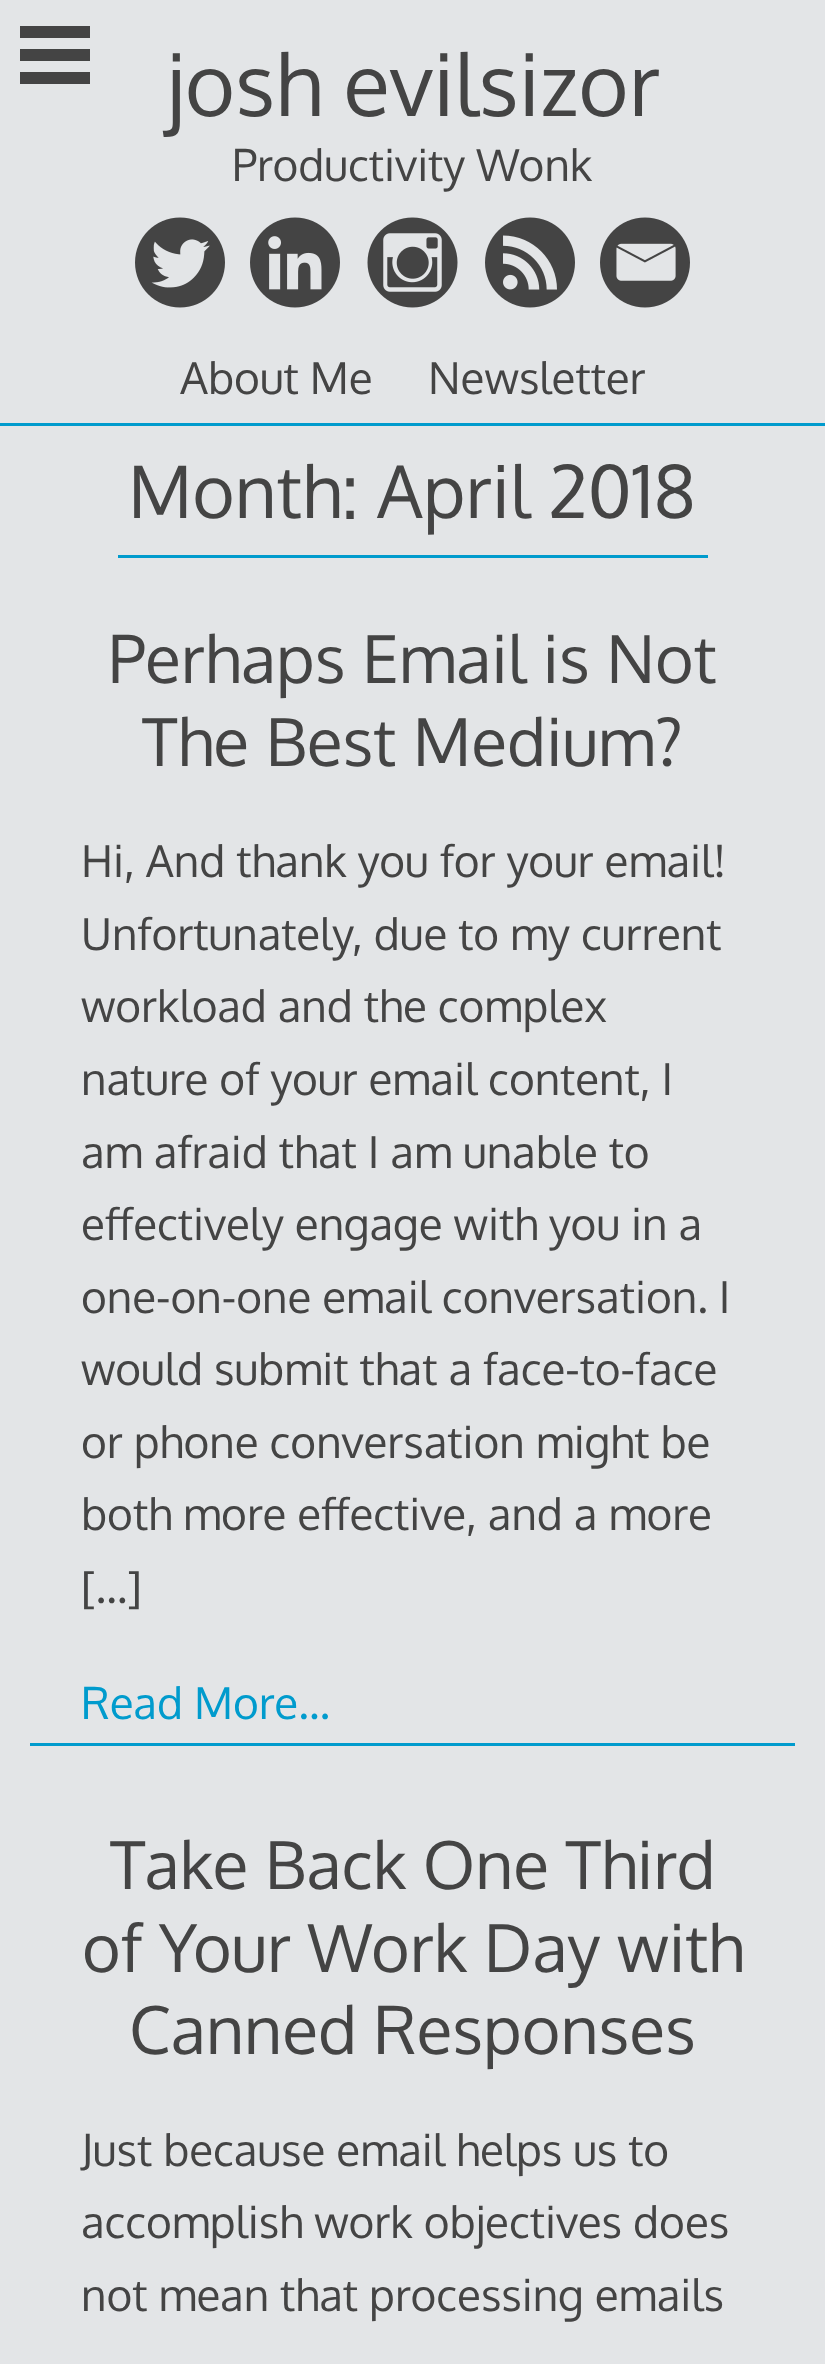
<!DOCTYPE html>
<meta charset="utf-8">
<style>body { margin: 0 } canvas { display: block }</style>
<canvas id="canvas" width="825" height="2364"></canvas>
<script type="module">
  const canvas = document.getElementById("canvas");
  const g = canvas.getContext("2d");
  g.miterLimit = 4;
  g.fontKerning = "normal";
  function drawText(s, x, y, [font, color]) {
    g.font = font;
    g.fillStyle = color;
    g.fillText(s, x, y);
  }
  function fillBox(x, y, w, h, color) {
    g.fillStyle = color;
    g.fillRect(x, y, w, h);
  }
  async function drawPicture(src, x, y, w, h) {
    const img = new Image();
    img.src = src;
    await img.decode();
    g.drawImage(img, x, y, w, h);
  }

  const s1 = ["86px Oxygen", "#444444"];
  const s2 = ["44px Oxygen", "#444444"];
  const s3 = ["72.5px Oxygen", "#444444"];
  const s4 = ["66px Oxygen", "#444444"];
  const s5 = ["44px Oxygen", "#009BCD"];

  fillBox(0, 0, 825, 2364, "#E3E5E7");
  fillBox(20, 26, 70, 12, "#444444");
  fillBox(20, 49, 70, 12, "#444444");
  fillBox(20, 72, 70, 12, "#444444");
  fillBox(0, 423, 825, 3, "#009BCD");
  drawText("josh evilsizor", 166, 116, s1);
  drawText("Productivity Wonk", 232, 181, s2);
  await drawPicture("pic1.png", 135, 217, 90, 91);
  await drawPicture("pic2.png", 250, 217, 90, 91);
  await drawPicture("pic3.png", 367, 217, 91, 91);
  await drawPicture("pic4.png", 485, 217, 90, 91);
  await drawPicture("pic5.png", 600, 217, 90, 91);
  drawText("About Me", 180, 394, s2);
  drawText("Newsletter", 428, 394, s2);
  fillBox(118, 555, 590, 3, "#009BCD");
  drawText("Month: April 2018", 128, 518, s3);
  drawText("Perhaps Email is Not", 108, 683, s4);
  drawText("The Best Medium?", 142, 766, s4);
  drawText("Hi, And thank you for your email!", 81, 877, s2);
  drawText("Unfortunately, due to my current", 81, 950, s2);
  drawText("workload and the complex", 81, 1022, s2);
  drawText("nature of your email content, I", 81, 1095, s2);
  drawText("am afraid that I am unable to", 81, 1168, s2);
  drawText("effectively engage with you in a", 81, 1240, s2);
  drawText("one-on-one email conversation. I", 81, 1313, s2);
  drawText("would submit that a face-to-face", 81, 1385, s2);
  drawText("or phone conversation might be", 81, 1458, s2);
  drawText("both more effective, and a more", 81, 1530, s2);
  drawText("[…]", 81, 1603, s2);
  fillBox(30, 1743, 765, 3, "#009BCD");
  drawText("Read More…", 81, 1719, s5);
  drawText("Take Back One Third", 110, 1889, s4);
  drawText("of Your Work Day with", 82, 1972, s4);
  drawText("Canned Responses", 129, 2054, s4);
  drawText("Just because email helps us to", 81, 2166, s2);
  drawText("accomplish work objectives does", 81, 2238, s2);
  drawText("not mean that processing emails", 81, 2311, s2);
</script>
